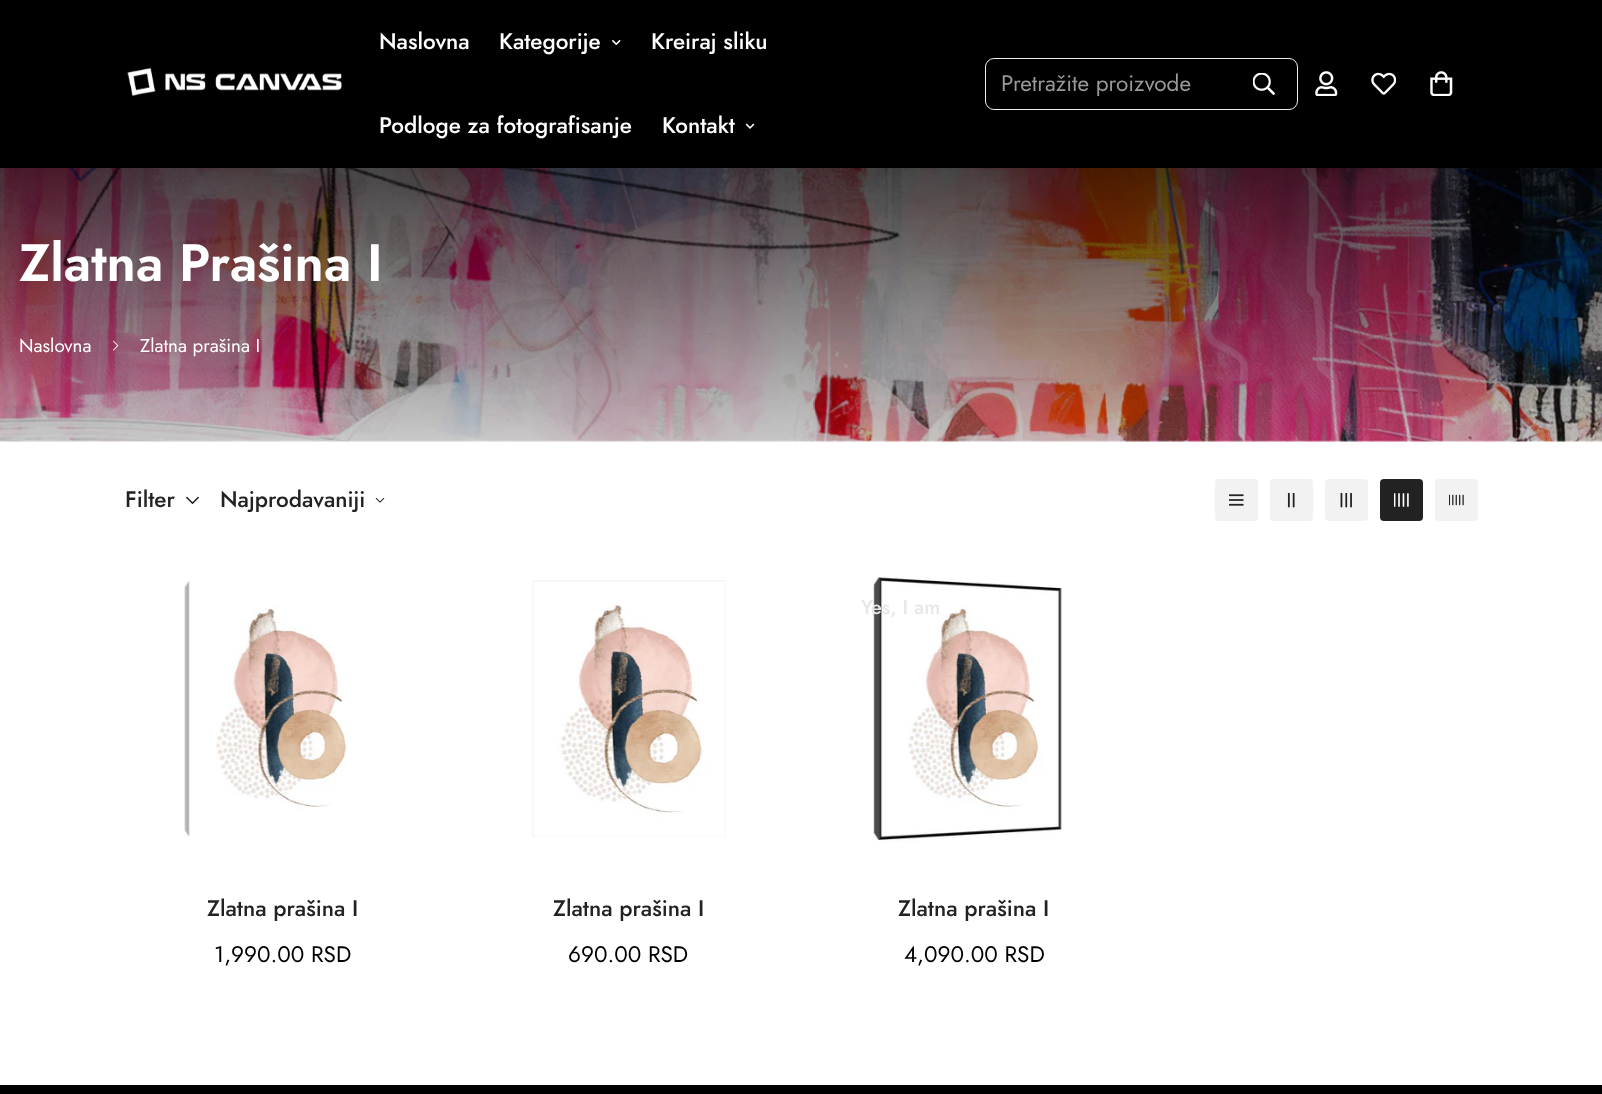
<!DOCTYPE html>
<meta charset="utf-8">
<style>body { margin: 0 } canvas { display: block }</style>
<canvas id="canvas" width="1602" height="1094"></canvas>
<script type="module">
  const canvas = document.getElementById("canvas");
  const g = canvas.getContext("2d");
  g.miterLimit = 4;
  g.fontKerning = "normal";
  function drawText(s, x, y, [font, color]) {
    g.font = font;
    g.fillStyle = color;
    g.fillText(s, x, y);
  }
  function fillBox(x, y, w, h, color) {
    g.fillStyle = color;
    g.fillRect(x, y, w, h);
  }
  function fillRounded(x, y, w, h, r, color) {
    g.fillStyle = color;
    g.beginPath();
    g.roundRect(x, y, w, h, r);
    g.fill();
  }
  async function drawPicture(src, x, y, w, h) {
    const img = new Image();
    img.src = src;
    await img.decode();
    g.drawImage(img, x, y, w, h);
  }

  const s1 = ["500 22.5px Jost", "#FFFFFF"];
  const s2 = ["22.5px Jost", "#999999"];
  const s3 = ["600 52.5px Jost", "#FFFFFF"];
  const s4 = ["18.75px Jost", "#FFFFFF"];
  const s5 = ["500 22.5px Jost", "#222222"];
  const s6 = ["22.5px Jost", "#000000"];
  const s7 = ["500 20px Jost", "#E7E7E7"];

  fillBox(0, 0, 1602, 1094, "#FFFFFF");
  fillBox(0, 0, 1602, 168, "#000000");
  await drawPicture("pic1.png", 127, 67, 215, 29);
  drawText("Naslovna", 379, 49, s1);
  drawText("Kategorije", 499, 49, s1);
  await drawPicture("pic2.png", 612, 40, 9, 5);
  drawText("Kreiraj sliku", 651, 49, s1);
  drawText("Podloge za fotografisanje", 379, 133, s1);
  drawText("Kontakt", 662, 133, s1);
  await drawPicture("pic3.png", 745, 123, 10, 6);
  g.beginPath();
  g.roundRect(985.5, 58.5, 312, 51, 8.5);
  g.strokeStyle = "#EEEEEE";
  g.stroke();
  drawText("Pretražite proizvode", 1001, 91, s2);
  await drawPicture("pic4.png", 1253, 73, 22, 22);
  await drawPicture("pic5.png", 1315, 71, 23, 25);
  await drawPicture("pic6.png", 1371, 72, 25, 23);
  await drawPicture("pic7.png", 1430, 71, 23, 25);
  await drawPicture("pic8.png", 0, 168, 1602, 274);
  drawText("Zlatna Prašina I", 19, 281, s3);
  drawText("Naslovna", 19, 352, s4);
  await drawPicture("pic9.png", 113, 340, 6, 11);
  drawText("Zlatna prašina I", 140, 352, s4);
  drawText("Filter", 125, 507, s5);
  await drawPicture("pic10.png", 186, 496, 13, 9);
  drawText("Najprodavaniji", 220, 507, s5);
  await drawPicture("pic11.png", 375, 497, 10, 6);
  fillRounded(1215, 479, 43, 42, 4, "#F2F2F2");
  await drawPicture("pic12.png", 1229, 494, 15, 12);
  fillRounded(1270, 479, 43, 42, 4, "#F2F2F2");
  await drawPicture("pic13.png", 1287, 493, 8, 15);
  fillRounded(1325, 479, 43, 42, 4, "#F2F2F2");
  await drawPicture("pic14.png", 1340, 493, 12, 15);
  fillRounded(1380, 479, 43, 42, 4, "#222222");
  await drawPicture("pic15.png", 1394, 493, 15, 14);
  fillRounded(1435, 479, 43, 42, 4, "#F2F2F2");
  await drawPicture("pic16.png", 1449, 494, 15, 12);
  await drawPicture("pic17.png", 184, 581, 163, 256);
  drawText("Zlatna prašina I", 207, 916, s5);
  drawText("1,990.00 RSD", 214, 962, s6);
  await drawPicture("pic18.png", 532, 580, 194, 258);
  drawText("Zlatna prašina I", 553, 916, s5);
  drawText("690.00 RSD", 568, 962, s6);
  await drawPicture("pic19.png", 873, 577, 189, 265);
  drawText("Zlatna prašina I", 898, 916, s5);
  drawText("4,090.00 RSD", 904, 962, s6);
  drawText("Yes, I am", 861, 614, s7);
  fillBox(0, 1085, 1602, 9, "#000000");
</script>
